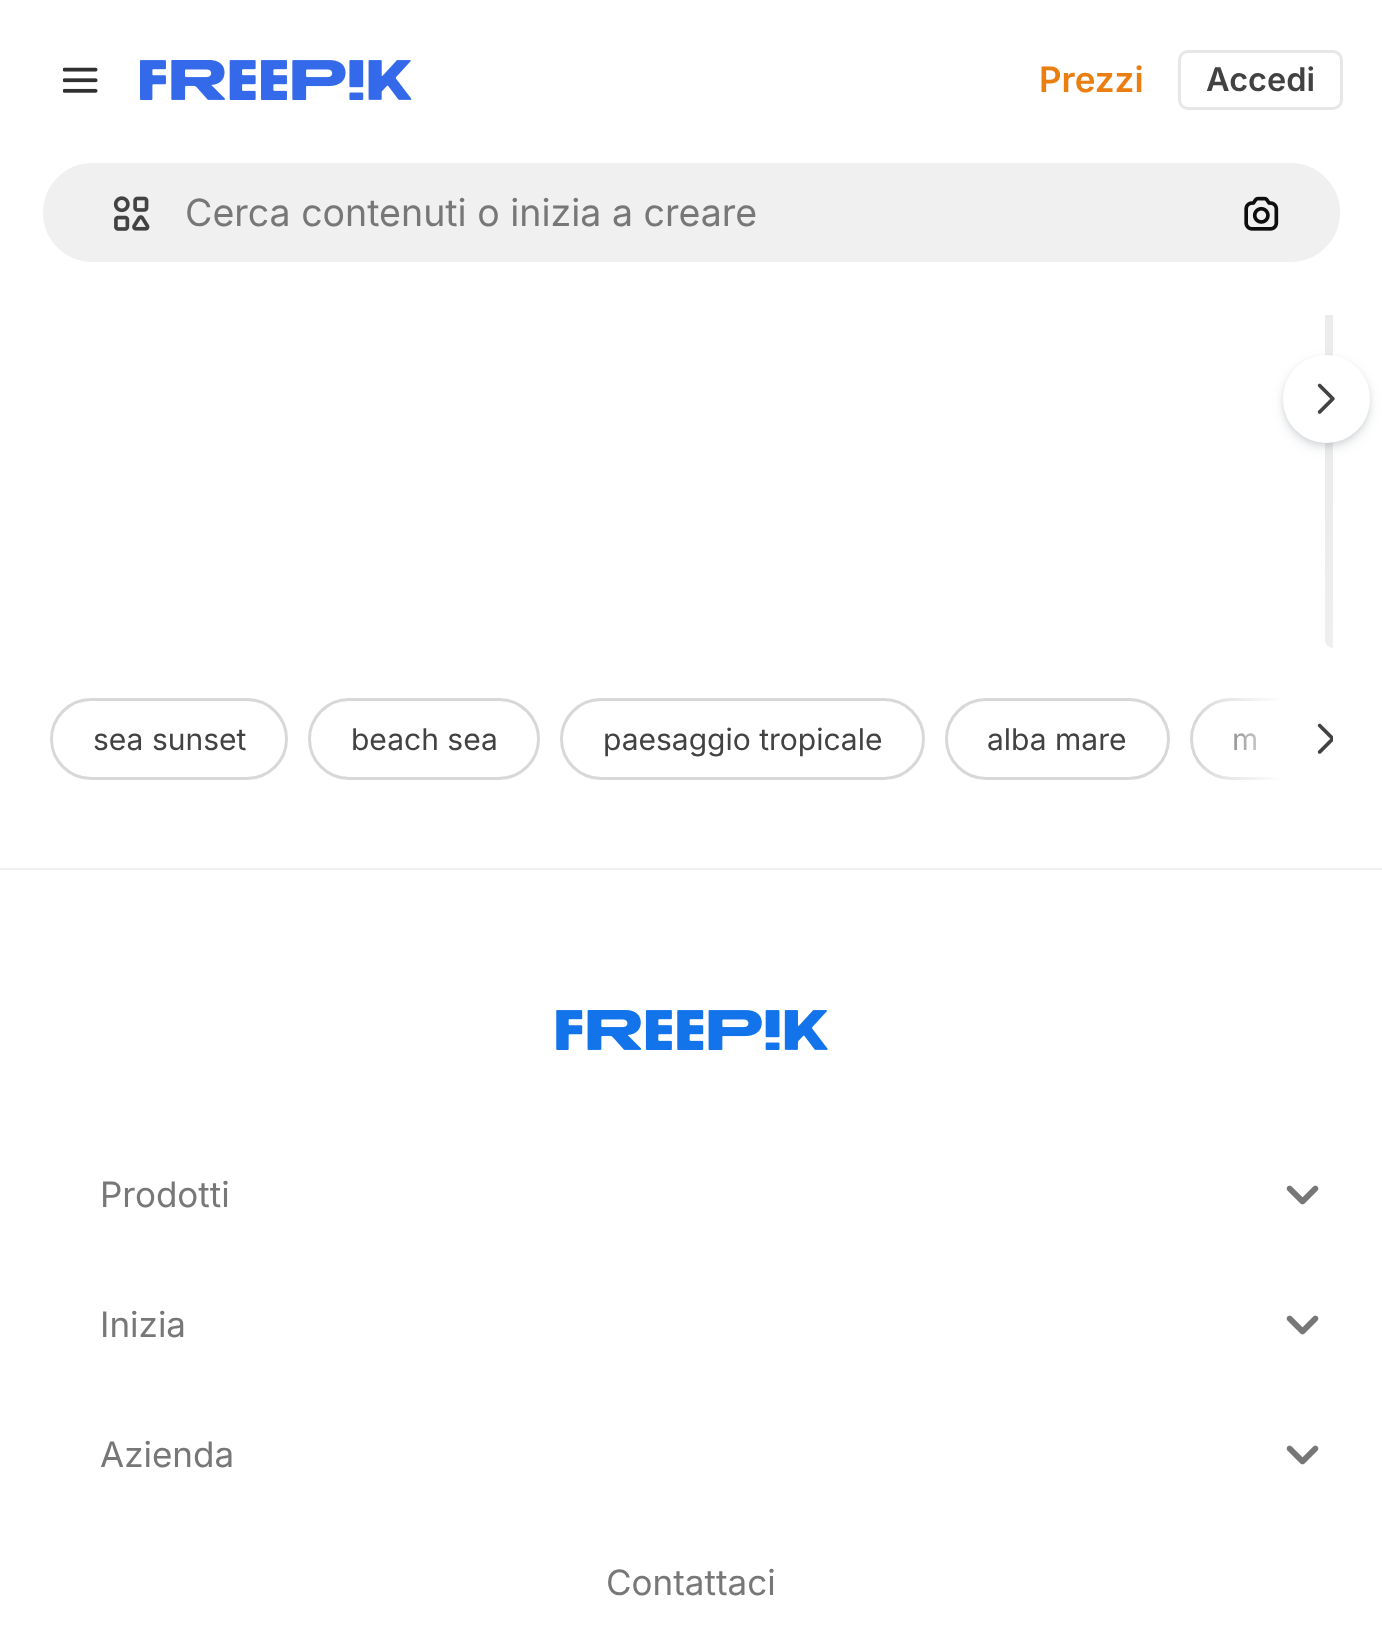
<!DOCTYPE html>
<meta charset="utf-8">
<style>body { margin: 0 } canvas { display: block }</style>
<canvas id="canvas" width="1382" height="1642"></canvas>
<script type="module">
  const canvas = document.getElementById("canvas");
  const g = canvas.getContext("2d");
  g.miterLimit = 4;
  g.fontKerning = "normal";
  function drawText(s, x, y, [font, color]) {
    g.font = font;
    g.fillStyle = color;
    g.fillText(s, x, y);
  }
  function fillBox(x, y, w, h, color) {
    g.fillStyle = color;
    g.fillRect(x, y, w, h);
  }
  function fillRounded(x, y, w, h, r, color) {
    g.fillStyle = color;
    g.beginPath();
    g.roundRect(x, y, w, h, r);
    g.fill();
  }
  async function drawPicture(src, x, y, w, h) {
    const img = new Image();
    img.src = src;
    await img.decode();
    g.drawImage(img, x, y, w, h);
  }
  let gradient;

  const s1 = ["600 35px Inter", "#EA7E11"];
  const s2 = ["600 32.5px Inter", "#424242"];
  const s3 = ["37.5px Inter", "#777777"];
  const s4 = ["30px Inter", "#424242"];
  const s5 = ["35px Inter", "#777777"];

  fillBox(0, 0, 1382, 1642, "#FFFFFF");
  gradient = g.createLinearGradient(1333, 126, 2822, 669);
  gradient.addColorStop(0.08, "#ECECEC");
  gradient.addColorStop(0.18, "#F5F5F5");
  gradient.addColorStop(0.33, "#ECECEC");
  g.fillStyle = gradient;
  g.beginPath();
  g.roundRect(1325, 148, 8, 500, [15, 0, 0, 15]);
  g.fill();
  fillBox(1325, 148, 9, 167, "#FFFFFF");
  await drawPicture("pic1.png", 63, 67, 35, 26);
  await drawPicture("pic2.png", 140, 60, 272, 40);
  drawText("Prezzi", 1039, 92, s1);
  g.beginPath();
  g.roundRect(1179.5, 51.5, 162, 57, 8.5);
  g.strokeStyle = "#E7E7E7";
  g.lineWidth = 3;
  g.stroke();
  drawText("Accedi", 1206, 91, s2);
  g.fillStyle = "#F0F0F0";
  g.beginPath();
  g.roundRect(41.5, 161.5, 1300, 102, 51);
  g.fill();
  g.strokeStyle = "#FFFFFF";
  g.stroke();
  await drawPicture("pic3.png", 113, 196, 37, 35);
  drawText("Cerca contenuti o inizia a creare", 185, 226, s3);
  await drawPicture("pic4.png", 1244, 196, 35, 35);
  g.fillStyle = "rgba(55, 73, 87, 0.15)";
  g.filter = "blur(6px)";
  g.beginPath();
  g.roundRect(1283, 360, 87, 88, 43.5);
  g.fill();
  g.filter = "none";
  g.fillStyle = "rgba(55, 73, 87, 0.1)";
  g.filter = "blur(2.5px)";
  g.beginPath();
  g.roundRect(1283, 358, 87, 87, 43.5);
  g.fill();
  g.filter = "none";
  fillRounded(1283, 355, 87, 88, 43.5, "#FFFFFF");
  await drawPicture("pic5.png", 1317, 383, 18, 31);
  g.beginPath();
  g.roundRect(51.5, 699.5, 235, 79, 39.5);
  g.strokeStyle = "#D8D8D8";
  g.stroke();
  drawText("sea sunset", 93, 750, s4);
  g.beginPath();
  g.roundRect(309.5, 699.5, 229, 79, 39.5);
  g.stroke();
  drawText("beach sea", 351, 750, s4);
  g.beginPath();
  g.roundRect(561.5, 699.5, 362, 79, 39.5);
  g.stroke();
  drawText("paesaggio tropicale", 603, 750, s4);
  g.beginPath();
  g.roundRect(946.5, 699.5, 222, 79, 39.5);
  g.stroke();
  drawText("alba mare", 987, 750, s4);
  g.save();
  g.beginPath();
  g.rect(50, 698, 1283, 82);
  g.clip();
  g.beginPath();
  g.roundRect(1191.5, 699.5, 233, 79, 39.5);
  g.stroke();
  g.restore();
  drawText("m", 1232, 750, s4);
  fillBox(1283, 698, 50, 82, "#FFFFFF");
  gradient = g.createLinearGradient(1283, 739, 1195, 739);
  gradient.addColorStop(0, "#FFFFFF");
  gradient.addColorStop(1, "rgba(255, 255, 255, 0)");
  g.fillStyle = gradient;
  g.fillRect(1201, 698, 82, 82);
  await drawPicture("pic6.png", 1317, 723, 16, 31);
  fillBox(0, 868, 1382, 2, "#F0F0F0");
  await drawPicture("pic7.png", 556, 1010, 272, 40);
  drawText("Prodotti", 100, 1207, s5);
  await drawPicture("pic8.png", 1286, 1185, 33, 20);
  drawText("Inizia", 100, 1337, s5);
  await drawPicture("pic8.png", 1286, 1315, 33, 20);
  drawText("Azienda", 100, 1467, s5);
  await drawPicture("pic8.png", 1286, 1445, 33, 20);
  drawText("Contattaci", 606, 1595, s5);
</script>
